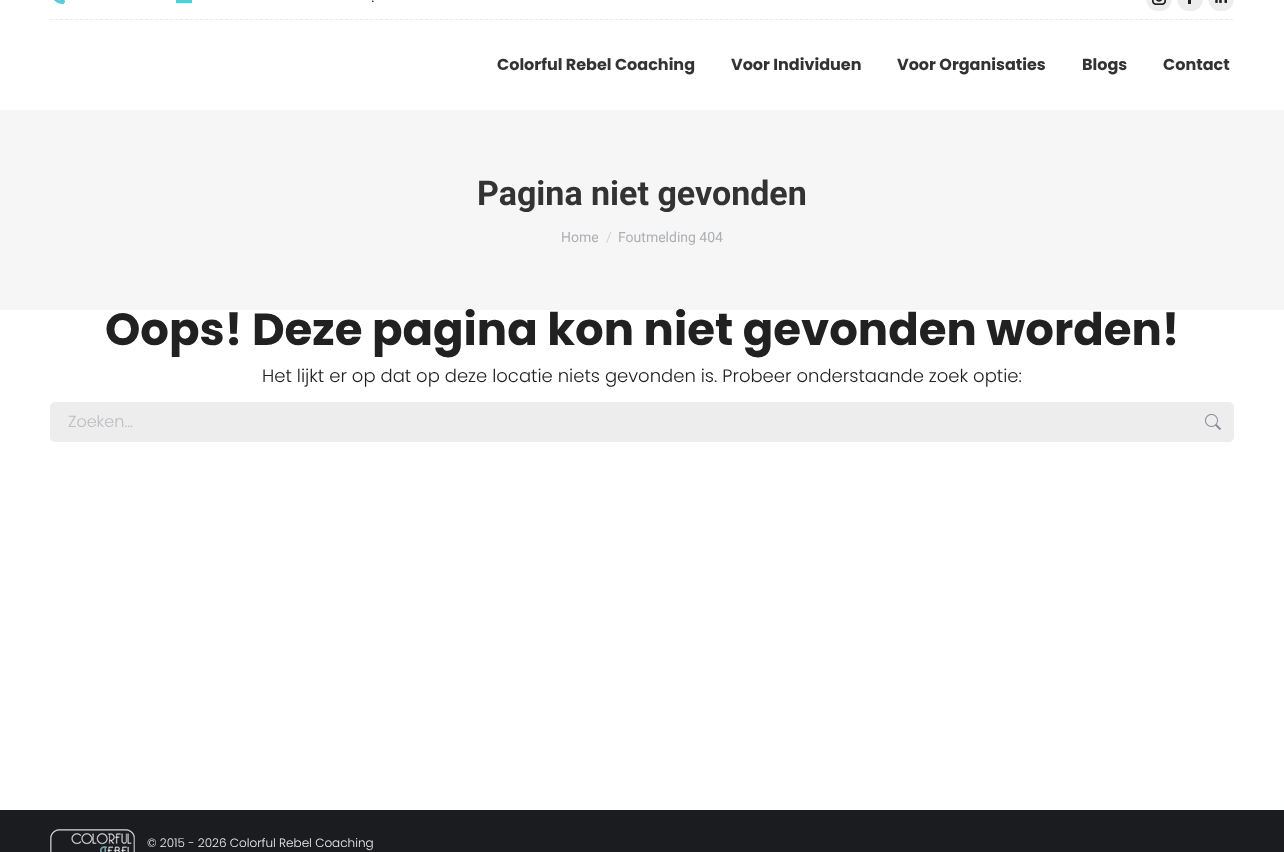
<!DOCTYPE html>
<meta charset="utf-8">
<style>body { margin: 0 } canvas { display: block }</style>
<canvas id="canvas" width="1284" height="852"></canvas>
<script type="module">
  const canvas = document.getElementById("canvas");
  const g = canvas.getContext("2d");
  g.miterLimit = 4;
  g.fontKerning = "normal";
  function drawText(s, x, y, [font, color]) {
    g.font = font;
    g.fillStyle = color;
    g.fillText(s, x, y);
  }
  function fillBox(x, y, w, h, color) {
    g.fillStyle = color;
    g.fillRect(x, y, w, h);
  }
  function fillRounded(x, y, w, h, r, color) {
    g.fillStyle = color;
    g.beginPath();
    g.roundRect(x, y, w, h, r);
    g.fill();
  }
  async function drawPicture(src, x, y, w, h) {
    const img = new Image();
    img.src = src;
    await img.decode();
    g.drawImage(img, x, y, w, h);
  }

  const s1 = ["500 13px Roboto", "#212121"];
  const s2 = ["bold 16px Poppins", "#333333"];
  const s3 = ["bold 34px Roboto", "#333333"];
  const s4 = ["14px Roboto", "#ADAFB3"];
  const s5 = ["14px Roboto", "#D2D3D5"];
  const s6 = ["bold 45px Poppins", "#212121"];
  const s7 = ["300 18px Poppins", "#212121"];
  const s8 = ["300 16px Poppins", "#BCBDC1"];
  const s9 = ["300 12px Poppins", "#EEEEEE"];

  fillBox(0, 0, 1284, 852, "#FFFFFF");
  await drawPicture("pic1.png", 54, 0, 11, 4);
  fillBox(176, 0, 16, 3, "#5DC8D6");
  drawText(".", 371, 2, s1);
  fillRounded(1146, -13, 26, 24, 13, "#EDEDED");
  await drawPicture("pic2.png", 1152, 0, 14, 5);
  fillRounded(1177, -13, 26, 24, 13, "#EDEDED");
  fillBox(1188, 0, 3, 4, "#212121");
  fillRounded(1208, -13, 26, 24, 13, "#EDEDED");
  await drawPicture("pic3.png", 1215, 0, 12, 3);
  g.beginPath();
  g.moveTo(50, 19.5);
  g.lineTo(1234, 19.5);
  g.strokeStyle = "#E9E9E9";
  g.setLineDash([3, 2]);
  g.stroke();
  drawText("Colorful Rebel Coaching", 497, 70, s2);
  drawText("Voor Individuen", 731, 70, s2);
  drawText("Voor Organisaties", 897, 70, s2);
  drawText("Blogs", 1082, 70, s2);
  drawText("Contact", 1163, 70, s2);
  fillBox(0, 110, 1284, 200, "#F6F6F6");
  drawText("Pagina niet gevonden", 477, 205, s3);
  drawText("Home", 561, 242, s4);
  drawText("/", 606, 242, s5);
  drawText("Foutmelding 404", 618, 242, s4);
  drawText("Oops! Deze pagina kon niet gevonden worden!", 105, 345, s6);
  drawText("Het lijkt er op dat op deze locatie niets gevonden is. Probeer onderstaande zoek optie:", 262, 382, s7);
  g.fillStyle = "#EDEDED";
  g.beginPath();
  g.roundRect(51.5, 403.5, 1181, 37, 3.5);
  g.fill();
  g.strokeStyle = "#EDEDED";
  g.lineWidth = 3;
  g.setLineDash([]);
  g.stroke();
  drawText("Zoeken…", 68, 427, s8);
  await drawPicture("pic4.png", 1205, 414, 16, 16);
  fillBox(0, 810, 1284, 42, "#1A1C20");
  await drawPicture("pic5.png", 50, 829, 85, 23);
  drawText("© 2015 - 2026 Colorful Rebel Coaching", 147, 847, s9);
</script>
